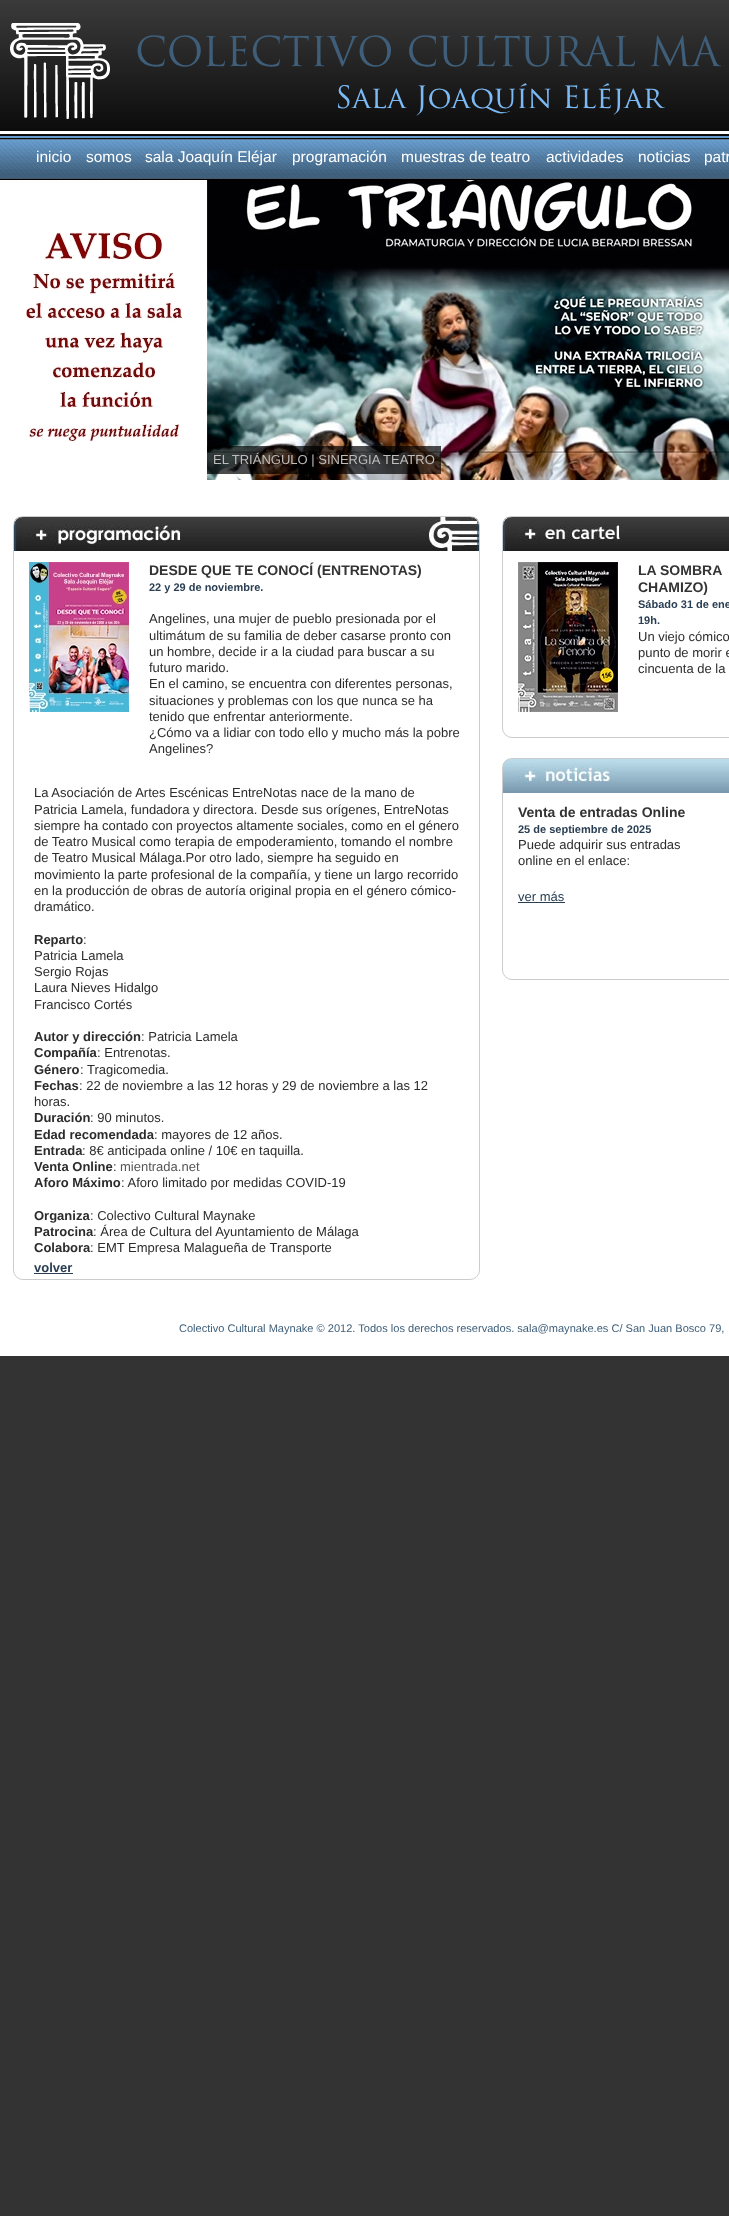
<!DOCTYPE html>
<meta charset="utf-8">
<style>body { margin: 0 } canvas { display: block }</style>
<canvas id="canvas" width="729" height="2216"></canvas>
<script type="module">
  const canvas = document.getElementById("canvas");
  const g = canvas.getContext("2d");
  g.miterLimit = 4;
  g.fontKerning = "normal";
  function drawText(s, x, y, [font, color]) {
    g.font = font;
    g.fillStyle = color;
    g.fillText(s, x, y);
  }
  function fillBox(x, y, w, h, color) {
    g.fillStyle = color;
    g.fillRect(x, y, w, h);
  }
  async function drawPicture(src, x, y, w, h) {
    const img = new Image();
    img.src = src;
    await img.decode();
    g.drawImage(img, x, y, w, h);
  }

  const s1 = ["40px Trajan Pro", "#3E5E79"];
  const s2 = ["30px Trajan Pro", "#7BBAF4"];
  const s3 = ["15.5px Liberation Sans", "#FFFFFF"];
  const s4 = ["13px Liberation Sans", "#BFBDBC"];
  const s5 = ["bold 14px Liberation Sans", "#333333"];
  const s6 = ["bold 11px Liberation Sans", "#293E52"];
  const s7 = ["13px Liberation Sans", "#2C2C2D"];
  const s8 = ["bold 13px Liberation Sans", "#2C2C2D"];
  const s9 = ["13px Liberation Sans", "#555555"];
  const s10 = ["bold 13px Liberation Sans", "#293E52"];
  const s11 = ["13px Liberation Sans", "#293E52"];
  const s12 = ["11.05px Liberation Sans", "#3E5E79"];

  fillBox(0, 0, 729, 2216, "#333333");
  await drawPicture("pic1.png", 0, 0, 729, 180);
  await drawPicture("pic2.png", 10, 23, 100, 96);
  drawText("COLECTIVO CULTURAL MA", 135, 66, s1);
  drawText("Sala Joaquín Eléjar", 335, 108, s2);
  await drawPicture("pic3.png", 0, 139, 729, 40);
  drawText("inicio", 36, 162, s3);
  drawText("somos", 86, 162, s3);
  drawText("sala Joaquín Eléjar", 145, 162, s3);
  drawText("programación", 292, 162, s3);
  drawText("muestras de teatro", 401, 162, s3);
  drawText("actividades", 546, 162, s3);
  drawText("noticias", 638, 162, s3);
  drawText("patr", 704, 162, s3);
  fillBox(0, 180, 729, 1176, "#FFFFFF");
  await drawPicture("pic4.png", 25, 232, 158, 210);
  await drawPicture("pic5.png", 207, 180, 522, 300);
  fillBox(207, 446, 234, 28, "rgba(0, 0, 0, 0.7)");
  drawText("EL TRIÁNGULO | SINERGIA TEATRO", 213, 464, s4);
  await drawPicture("pic6.png", 14, 517, 465, 34);
  g.beginPath();
  g.roundRect(13.5, 516.5, 466, 763, 9.5);
  g.strokeStyle = "#CCCCCC";
  g.stroke();
  await drawPicture("pic7.png", 29, 562, 100, 150);
  drawText("DESDE QUE TE CONOCÍ (ENTRENOTAS)", 149, 575, s5);
  drawText("22 y 29 de noviembre.", 149, 591, s6);
  drawText("Angelines, una mujer de pueblo presionada por el", 149, 623, s7);
  drawText("ultimátum de su familia de deber casarse pronto con", 149, 640, s7);
  drawText("un hombre, decide ir a la ciudad para buscar a su", 149, 656, s7);
  drawText("futuro marido.", 149, 672, s7);
  drawText("En el camino, se encuentra con diferentes personas,", 149, 688, s7);
  drawText("situaciones y problemas con los que nunca se ha", 149, 705, s7);
  drawText("tenido que enfrentar anteriormente.", 149, 721, s7);
  drawText("¿Cómo va a lidiar con todo ello y mucho más la pobre", 149, 737, s7);
  drawText("Angelines?", 149, 753, s7);
  drawText("La Asociación de Artes Escénicas EntreNotas nace de la mano de", 34, 797, s7);
  drawText("Patricia Lamela, fundadora y directora. Desde sus orígenes, EntreNotas", 34, 814, s7);
  drawText("siempre ha contado con proyectos altamente sociales, como en el género", 34, 830, s7);
  drawText("de Teatro Musical como terapia de empoderamiento, tomando el nombre", 34, 846, s7);
  drawText("de Teatro Musical Málaga.Por otro lado, siempre ha seguido en", 34, 862, s7);
  drawText("movimiento la parte profesional de la compañía, y tiene un largo recorrido", 34, 879, s7);
  drawText("en la producción de obras de autoría original propia en el género cómico-", 34, 895, s7);
  drawText("dramático.", 34, 911, s7);
  drawText("Reparto", 34, 944, s8);
  drawText(":", 83, 944, s7);
  drawText("Patricia Lamela", 34, 960, s7);
  drawText("Sergio Rojas", 34, 976, s7);
  drawText("Laura Nieves Hidalgo", 34, 992, s7);
  drawText("Francisco Cortés", 34, 1009, s7);
  drawText("Autor y dirección", 34, 1041, s8);
  drawText(": Patricia Lamela", 141, 1041, s7);
  drawText("Compañía", 34, 1057, s8);
  drawText(": Entrenotas.", 97, 1057, s7);
  drawText("Género", 34, 1074, s8);
  drawText(": Tragicomedia.", 80, 1074, s7);
  drawText("Fechas", 34, 1090, s8);
  drawText(": 22 de noviembre a las 12 horas y 29 de noviembre a las 12", 79, 1090, s7);
  drawText("horas.", 34, 1106, s7);
  drawText("Duración", 34, 1122, s8);
  drawText(": 90 minutos.", 90, 1122, s7);
  drawText("Edad recomendada", 34, 1139, s8);
  drawText(": mayores de 12 años.", 154, 1139, s7);
  drawText("Entrada", 34, 1155, s8);
  drawText(": 8€ anticipada online / 10€ en taquilla.", 82, 1155, s7);
  drawText("Venta Online", 34, 1171, s8);
  drawText(":", 113, 1171, s7);
  drawText("mientrada.net", 120, 1171, s9);
  drawText("Aforo Máximo", 34, 1187, s8);
  drawText(": Aforo limitado por medidas COVID-19", 121, 1187, s7);
  drawText("Organiza", 34, 1220, s8);
  drawText(": Colectivo Cultural Maynake", 90, 1220, s7);
  drawText("Patrocina", 34, 1236, s8);
  drawText(": Área de Cultura del Ayuntamiento de Málaga", 93, 1236, s7);
  drawText("Colabora", 34, 1252, s8);
  drawText(": EMT Empresa Malagueña de Transporte", 90, 1252, s7);
  drawText("volver", 34, 1272, s10);
  fillBox(34, 1273, 39, 1, "#293E52");
  await drawPicture("pic8.png", 503, 517, 226, 34);
  g.beginPath();
  g.roundRect(502.5, 516.5, 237, 221, 9.5);
  g.stroke();
  await drawPicture("pic9.png", 518, 562, 100, 150);
  drawText("LA SOMBRA", 638, 575, s5);
  drawText("CHAMIZO)", 638, 592, s5);
  drawText("Sábado 31 de ene", 638, 608, s6);
  drawText("19h.", 638, 624, s6);
  drawText("Un viejo cómico", 638, 641, s7);
  drawText("punto de morir e", 638, 657, s7);
  drawText("cincuenta de la", 638, 673, s7);
  await drawPicture("pic10.png", 503, 759, 226, 34);
  g.beginPath();
  g.roundRect(502.5, 758.5, 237, 221, 9.5);
  g.stroke();
  drawText("Venta de entradas Online", 518, 817, s5);
  drawText("25 de septiembre de 2025", 518, 833, s6);
  drawText("Puede adquirir sus entradas", 518, 849, s7);
  drawText("online en el enlace:", 518, 865, s7);
  drawText("ver más", 518, 901, s11);
  fillBox(518, 902, 47, 1, "#293E52");
  drawText("Colectivo Cultural Maynake © 2012. Todos los derechos reservados. sala@maynake.es C/ San Juan Bosco 79,", 179, 1332, s12);
</script>
